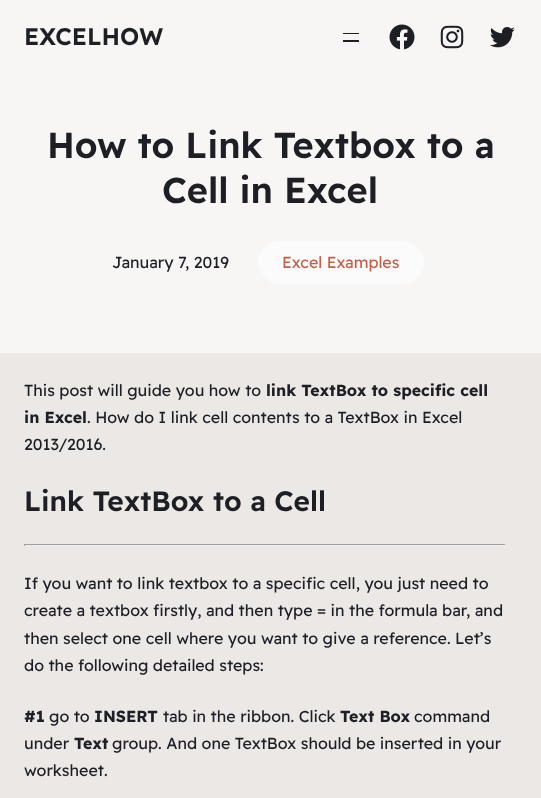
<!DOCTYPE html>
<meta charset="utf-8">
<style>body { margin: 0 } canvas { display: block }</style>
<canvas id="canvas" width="541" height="798"></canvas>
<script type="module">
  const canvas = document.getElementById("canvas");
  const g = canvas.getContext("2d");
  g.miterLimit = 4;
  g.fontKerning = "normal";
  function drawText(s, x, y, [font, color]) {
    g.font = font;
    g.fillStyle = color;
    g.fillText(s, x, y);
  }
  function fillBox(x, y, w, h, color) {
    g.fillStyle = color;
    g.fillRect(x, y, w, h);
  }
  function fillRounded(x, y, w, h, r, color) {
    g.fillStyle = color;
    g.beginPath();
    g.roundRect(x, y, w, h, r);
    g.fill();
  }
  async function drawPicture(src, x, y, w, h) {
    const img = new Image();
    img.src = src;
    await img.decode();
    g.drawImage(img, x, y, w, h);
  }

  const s1 = ["600 24px Readex Pro", "#1D1F25"];
  const s2 = ["600 36px Readex Pro", "#1D1F25"];
  const s3 = ["16px Readex Pro", "#1D1F25"];
  const s4 = ["16px Readex Pro", "#C26148"];
  const s5 = ["bold 16px Readex Pro", "#1D1F25"];
  const s6 = ["600 28px Readex Pro", "#1D1F25"];

  fillBox(0, 0, 541, 798, "#EBE8E6");
  fillBox(0, 0, 541, 353, "#F7F6F5");
  drawText("EXCELHOW", 24, 45, s1);
  fillBox(343, 33, 16, 1, "#1D1F25");
  fillBox(343, 40, 16, 2, "#1D1F25");
  await drawPicture("pic1.png", 389, 24, 26, 26);
  await drawPicture("pic2.png", 440, 25, 24, 24);
  await drawPicture("pic3.png", 490, 27, 25, 21);
  drawText("How to Link Textbox to a", 47, 158, s2);
  drawText("Cell in Excel", 162, 203, s2);
  drawText("January 7, 2019", 112, 268, s3);
  fillRounded(258, 241, 166, 43, 21.5, "#FCFBFB");
  drawText("Excel Examples", 282, 268, s4);
  drawText("This post will guide you how to", 24, 396, s3);
  drawText("link TextBox to specific cell", 266, 396, s5);
  drawText("in Excel", 24, 423, s5);
  drawText(". How do I link cell contents to a TextBox in Excel", 87, 423, s3);
  drawText("2013/2016.", 24, 450, s3);
  drawText("Link TextBox to a Cell", 24, 511, s6);
  fillBox(24, 544, 482, 1, "#9F9F9F");
  fillBox(505, 544, 1, 2, "#EEEEEE");
  fillBox(24, 545, 482, 1, "#EEEEEE");
  fillBox(24, 544, 1, 2, "#9F9F9F");
  drawText("If you want to link textbox to a specific cell, you just need to", 24, 589, s3);
  drawText("create a textbox firstly, and then type = in the formula bar, and", 24, 616, s3);
  drawText("then select one cell where you want to give a reference. Let’s", 24, 644, s3);
  drawText("do the following detailed steps:", 24, 671, s3);
  drawText("#1", 24, 722, s5);
  drawText("go to", 49, 722, s3);
  drawText("INSERT", 94, 722, s5);
  drawText("tab in the ribbon. Click", 163, 722, s3);
  drawText("Text Box", 340, 722, s5);
  drawText("command", 414, 722, s3);
  drawText("under", 24, 749, s3);
  drawText("Text", 74, 749, s5);
  drawText("group. And one TextBox should be inserted in your", 112, 749, s3);
  drawText("worksheet.", 24, 776, s3);
</script>
